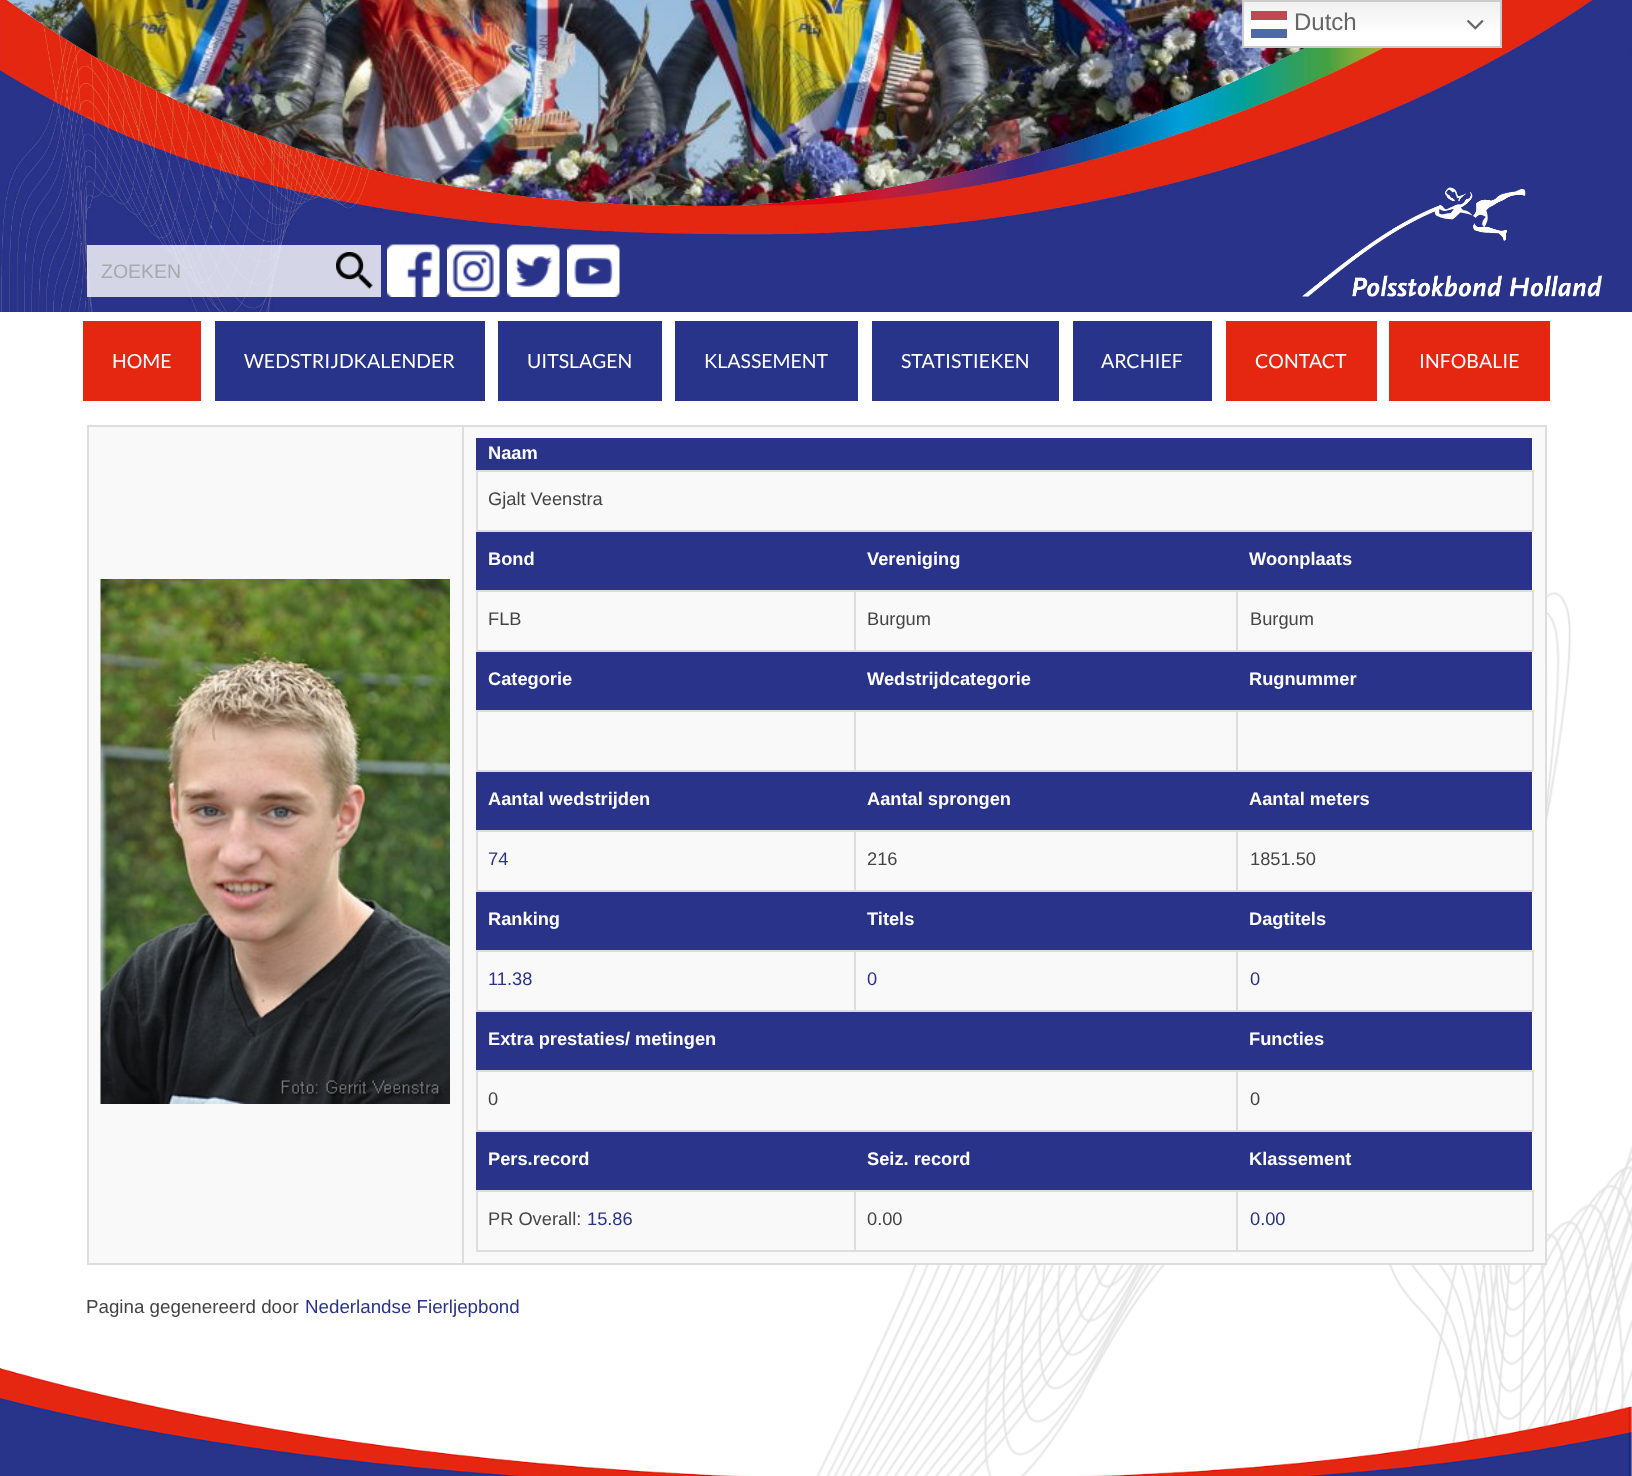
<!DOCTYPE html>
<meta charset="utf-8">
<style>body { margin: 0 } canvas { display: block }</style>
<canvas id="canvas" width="1632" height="1476"></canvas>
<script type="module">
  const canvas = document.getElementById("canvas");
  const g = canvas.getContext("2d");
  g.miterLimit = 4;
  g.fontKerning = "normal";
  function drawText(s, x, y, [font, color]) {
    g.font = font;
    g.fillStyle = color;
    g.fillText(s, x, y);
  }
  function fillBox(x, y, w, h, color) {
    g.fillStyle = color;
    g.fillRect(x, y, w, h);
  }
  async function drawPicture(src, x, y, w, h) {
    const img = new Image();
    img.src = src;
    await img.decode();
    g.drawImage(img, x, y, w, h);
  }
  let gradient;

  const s1 = ["24px Liberation Sans", "#666666"];
  const s2 = ["19.5px Liberation Sans", "#A9A9A9"];
  const s3 = ["19.5px Lato", "#FFFFFF"];
  const s4 = ["bold 18.25px Liberation Sans", "#FFFFFF"];
  const s5 = ["18.25px Liberation Sans", "#444444"];
  const s6 = ["18.25px Liberation Sans", "#29338A"];
  const s7 = ["18.75px Liberation Sans", "#444444"];
  const s8 = ["18.75px Liberation Sans", "#29338A"];

  fillBox(0, 0, 1632, 1476, "#FFFFFF");
  await drawPicture("pic1.png", 816, 592, 816, 884);
  await drawPicture("pic3.png", 0, 0, 1632, 312);
  gradient = g.createLinearGradient(1372, 0, 1372, 48);
  gradient.addColorStop(0, "#EFEFEF");
  gradient.addColorStop(0.7, "#FFFFFF");
  g.fillStyle = gradient;
  g.fillRect(1244, 2, 256, 44);
  g.strokeStyle = "#CCCCCC";
  g.lineWidth = 2;
  g.strokeRect(1243, 1, 258, 46);
  fillBox(1251, 11, 36, 9, "#BE4953");
  drawText("Dutch", 1294, 30, s1);
  fillBox(1251, 20, 36, 6, "rgba(255, 255, 255, 0.8)");
  await drawPicture("pic2.png", 1467, 20, 17, 10);
  fillBox(1251, 29, 36, 9, "#4D6BA2");
  fillBox(87, 245, 242, 52, "rgba(255, 255, 255, 0.8)");
  drawText("ZOEKEN", 101, 278, s2);
  fillBox(329, 245, 52, 52, "#D4D6E8");
  await drawPicture("pic4.png", 336, 252, 37, 37);
  await drawPicture("pic5.png", 387, 244, 53, 53);
  await drawPicture("pic6.png", 447, 244, 53, 53);
  await drawPicture("pic7.png", 507, 244, 53, 53);
  await drawPicture("pic8.png", 567, 244, 53, 53);
  await drawPicture("pic9.png", 1302, 187, 300, 110);
  fillBox(83, 321, 118, 80, "#E52712");
  drawText("HOME", 112, 368, s3);
  fillBox(215, 321, 270, 80, "#28338A");
  drawText("WEDSTRIJDKALENDER", 244, 368, s3);
  fillBox(498, 321, 164, 80, "#28338A");
  drawText("UITSLAGEN", 527, 368, s3);
  fillBox(675, 321, 183, 80, "#28338A");
  drawText("KLASSEMENT", 704, 368, s3);
  fillBox(872, 321, 187, 80, "#28338A");
  drawText("STATISTIEKEN", 901, 368, s3);
  fillBox(1073, 321, 139, 80, "#28338A");
  drawText("ARCHIEF", 1101, 368, s3);
  fillBox(1226, 321, 151, 80, "#E52712");
  drawText("CONTACT", 1255, 368, s3);
  fillBox(1389, 321, 161, 80, "#E52712");
  drawText("INFOBALIE", 1419, 368, s3);
  fillBox(89, 427, 373, 836, "#F9F9F9");
  fillBox(462, 425, 1085, 2, "#DDDDDD");
  fillBox(1545, 425, 2, 840, "#DDDDDD");
  fillBox(462, 1263, 1085, 2, "#DDDDDD");
  fillBox(462, 425, 2, 840, "#DDDDDD");
  fillBox(87, 425, 377, 2, "#DDDDDD");
  fillBox(87, 1263, 377, 2, "#DDDDDD");
  fillBox(87, 425, 2, 840, "#DDDDDD");
  await drawPicture("pic10.png", 100, 579, 350, 525);
  fillBox(464, 427, 1081, 836, "#F9F9F9");
  fillBox(1532, 438, 1, 752, "#FFFFFF");
  fillBox(476, 438, 1056, 32, "#29338A");
  drawText("Naam", 488, 459, s4);
  fillBox(476, 470, 1057, 2, "#DDDDDD");
  fillBox(1532, 470, 2, 61, "#DDDDDD");
  fillBox(476, 530, 1057, 2, "#DDDDDD");
  fillBox(476, 470, 2, 61, "#DDDDDD");
  drawText("Gjalt Veenstra", 488, 505, s5);
  fillBox(476, 532, 1056, 58, "#29338A");
  drawText("Bond", 488, 565, s4);
  drawText("Vereniging", 867, 565, s4);
  drawText("Woonplaats", 1249, 565, s4);
  fillBox(1236, 590, 297, 2, "#DDDDDD");
  fillBox(1532, 590, 2, 61, "#DDDDDD");
  fillBox(1236, 650, 297, 2, "#DDDDDD");
  fillBox(1236, 590, 2, 61, "#DDDDDD");
  fillBox(854, 590, 384, 2, "#DDDDDD");
  fillBox(854, 650, 384, 2, "#DDDDDD");
  fillBox(854, 590, 2, 61, "#DDDDDD");
  fillBox(476, 590, 379, 2, "#DDDDDD");
  fillBox(476, 650, 379, 2, "#DDDDDD");
  fillBox(476, 590, 2, 61, "#DDDDDD");
  drawText("FLB", 488, 625, s5);
  drawText("Burgum", 867, 625, s5);
  drawText("Burgum", 1250, 625, s5);
  fillBox(476, 652, 1056, 58, "#29338A");
  drawText("Categorie", 488, 685, s4);
  drawText("Wedstrijdcategorie", 867, 685, s4);
  drawText("Rugnummer", 1249, 685, s4);
  fillBox(1236, 710, 297, 2, "#DDDDDD");
  fillBox(1532, 710, 2, 61, "#DDDDDD");
  fillBox(1236, 770, 297, 2, "#DDDDDD");
  fillBox(1236, 710, 2, 61, "#DDDDDD");
  fillBox(854, 710, 384, 2, "#DDDDDD");
  fillBox(854, 770, 384, 2, "#DDDDDD");
  fillBox(854, 710, 2, 61, "#DDDDDD");
  fillBox(476, 710, 379, 2, "#DDDDDD");
  fillBox(476, 770, 379, 2, "#DDDDDD");
  fillBox(476, 710, 2, 61, "#DDDDDD");
  fillBox(476, 772, 1056, 58, "#29338A");
  drawText("Aantal wedstrijden", 488, 805, s4);
  drawText("Aantal sprongen", 867, 805, s4);
  drawText("Aantal meters", 1249, 805, s4);
  fillBox(1236, 830, 297, 2, "#DDDDDD");
  fillBox(1532, 830, 2, 61, "#DDDDDD");
  fillBox(1236, 890, 297, 2, "#DDDDDD");
  fillBox(1236, 830, 2, 61, "#DDDDDD");
  fillBox(854, 830, 384, 2, "#DDDDDD");
  fillBox(854, 890, 384, 2, "#DDDDDD");
  fillBox(854, 830, 2, 61, "#DDDDDD");
  fillBox(476, 830, 379, 2, "#DDDDDD");
  fillBox(476, 890, 379, 2, "#DDDDDD");
  fillBox(476, 830, 2, 61, "#DDDDDD");
  drawText("74", 488, 865, s6);
  drawText("216", 867, 865, s5);
  drawText("1851.50", 1250, 865, s5);
  fillBox(476, 892, 1056, 58, "#29338A");
  drawText("Ranking", 488, 925, s4);
  drawText("Titels", 867, 925, s4);
  drawText("Dagtitels", 1249, 925, s4);
  fillBox(1236, 950, 297, 2, "#DDDDDD");
  fillBox(1532, 950, 2, 61, "#DDDDDD");
  fillBox(1236, 1010, 297, 2, "#DDDDDD");
  fillBox(1236, 950, 2, 61, "#DDDDDD");
  fillBox(854, 950, 384, 2, "#DDDDDD");
  fillBox(854, 1010, 384, 2, "#DDDDDD");
  fillBox(854, 950, 2, 61, "#DDDDDD");
  fillBox(476, 950, 379, 2, "#DDDDDD");
  fillBox(476, 1010, 379, 2, "#DDDDDD");
  fillBox(476, 950, 2, 61, "#DDDDDD");
  drawText("11.38", 488, 985, s6);
  drawText("0", 867, 985, s6);
  drawText("0", 1250, 985, s6);
  fillBox(476, 1012, 1056, 58, "#29338A");
  drawText("Extra prestaties/ metingen", 488, 1045, s4);
  drawText("Functies", 1249, 1045, s4);
  fillBox(1236, 1070, 297, 2, "#DDDDDD");
  fillBox(1532, 1070, 2, 61, "#DDDDDD");
  fillBox(1236, 1130, 297, 2, "#DDDDDD");
  fillBox(1236, 1070, 2, 61, "#DDDDDD");
  fillBox(476, 1070, 762, 2, "#DDDDDD");
  fillBox(476, 1130, 762, 2, "#DDDDDD");
  fillBox(476, 1070, 2, 61, "#DDDDDD");
  drawText("0", 488, 1105, s5);
  drawText("0", 1250, 1105, s5);
  fillBox(476, 1132, 1056, 58, "#29338A");
  drawText("Pers.record", 488, 1165, s4);
  drawText("Seiz. record", 867, 1165, s4);
  drawText("Klassement", 1249, 1165, s4);
  fillBox(1236, 1190, 297, 2, "#DDDDDD");
  fillBox(1532, 1190, 2, 61, "#DDDDDD");
  fillBox(1236, 1250, 297, 2, "#DDDDDD");
  fillBox(1236, 1190, 2, 61, "#DDDDDD");
  fillBox(854, 1190, 384, 2, "#DDDDDD");
  fillBox(854, 1250, 384, 2, "#DDDDDD");
  fillBox(854, 1190, 2, 61, "#DDDDDD");
  fillBox(476, 1190, 379, 2, "#DDDDDD");
  fillBox(476, 1250, 379, 2, "#DDDDDD");
  fillBox(476, 1190, 2, 61, "#DDDDDD");
  drawText("PR Overall:", 488, 1225, s5);
  drawText("15.86", 587, 1225, s6);
  drawText("0.00", 867, 1225, s5);
  drawText("0.00", 1250, 1225, s6);
  drawText("Pagina gegenereerd door", 86, 1313, s7);
  drawText("Nederlandse Fierljepbond", 305, 1313, s8);
  await drawPicture("pic11.png", 0, 1368, 1632, 108);
</script>
